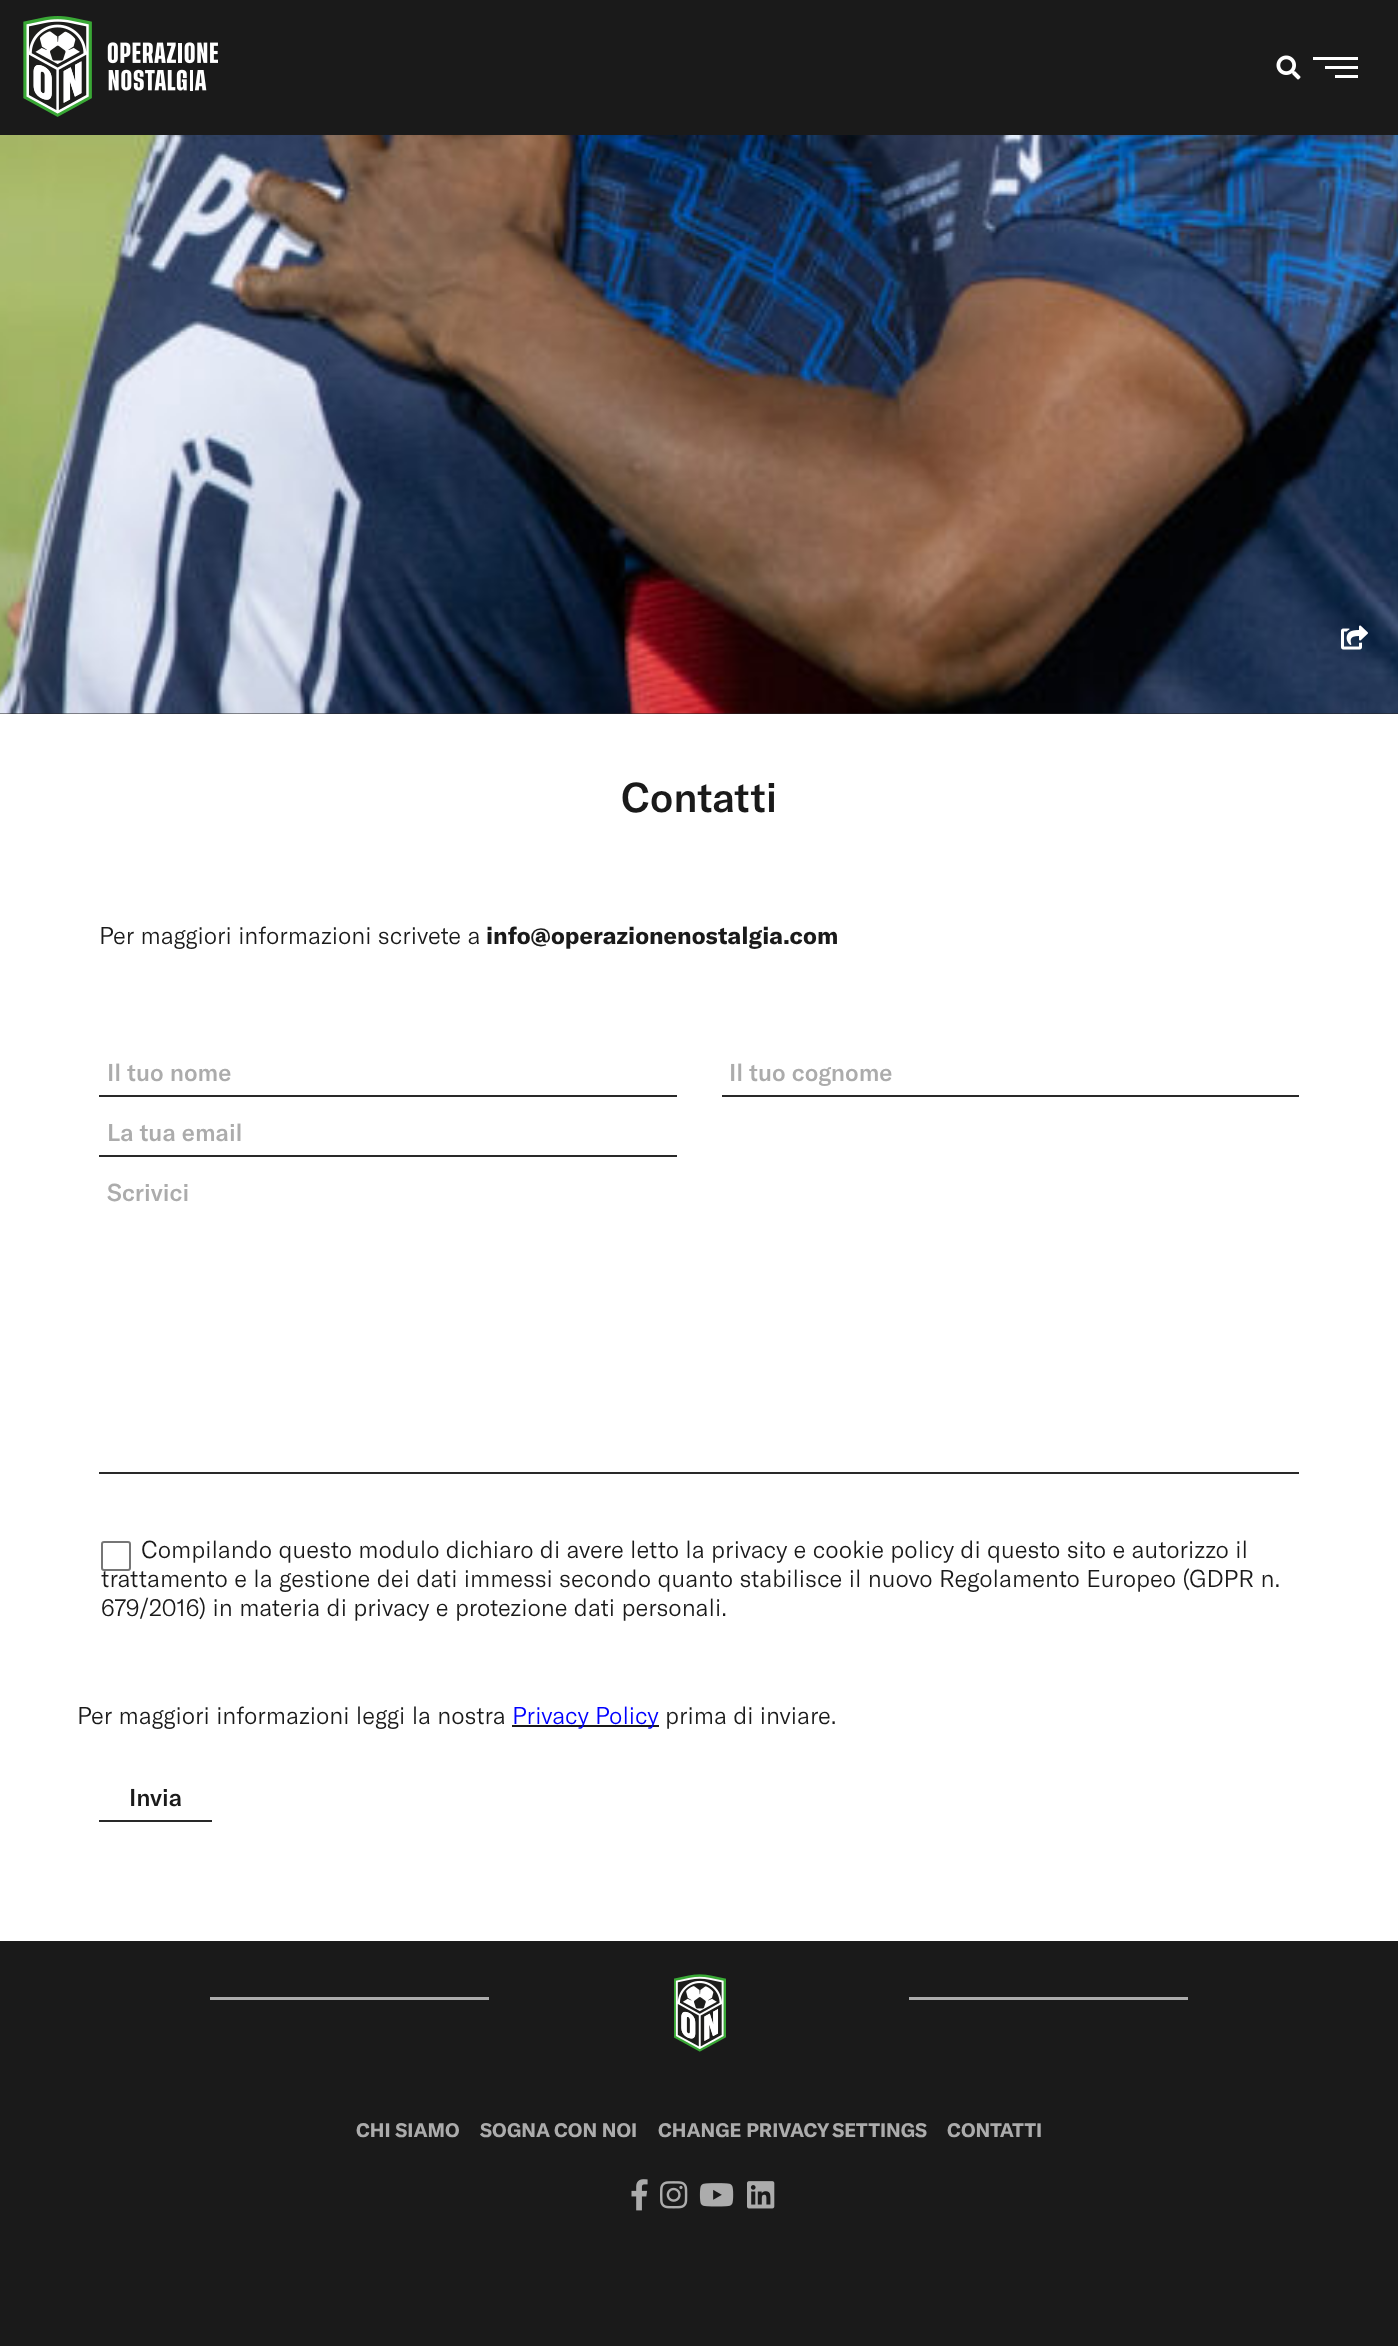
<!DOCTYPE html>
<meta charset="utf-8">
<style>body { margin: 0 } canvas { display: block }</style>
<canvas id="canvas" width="1398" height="2346"></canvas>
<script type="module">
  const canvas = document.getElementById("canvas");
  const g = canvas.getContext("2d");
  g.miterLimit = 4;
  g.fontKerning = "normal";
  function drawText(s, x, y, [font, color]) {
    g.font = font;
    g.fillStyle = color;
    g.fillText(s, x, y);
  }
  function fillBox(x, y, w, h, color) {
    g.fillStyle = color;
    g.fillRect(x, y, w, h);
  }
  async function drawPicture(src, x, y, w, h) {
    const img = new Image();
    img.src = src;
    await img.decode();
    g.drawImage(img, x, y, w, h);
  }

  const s1 = ["500 41px GT America", "#1A1A1A"];
  const s2 = ["300 24px GT America", "#1A1A1A"];
  const s3 = ["bold 24px GT America", "#1A1A1A"];
  const s4 = ["500 24px GT America", "#ACACAC"];
  const s5 = ["300 24px GT America", "#0000FF"];
  const s6 = ["500 24px GT America", "#1A1A1A"];
  const s7 = ["bold 19.25px GT America", "#ACACAC"];

  fillBox(0, 0, 1398, 2346, "#1A1A1A");
  await drawPicture("pic1.png", 23, 16, 195, 101);
  await drawPicture("pic2.png", 1276, 55, 25, 25);
  fillBox(1313, 57, 45, 3, "#FFFFFF");
  fillBox(1325, 66, 33, 3, "#FFFFFF");
  fillBox(1335, 75, 23, 3, "#FFFFFF");
  fillBox(0, 713, 1398, 1, "#252525");
  await drawPicture("pic3.png", 0, 135, 1398, 579);
  await drawPicture("pic4.png", 1341, 625, 27, 25);
  fillBox(0, 714, 1398, 1227, "#FFFFFF");
  drawText("Contatti", 621, 812, s1);
  drawText("Per maggiori informazioni scrivete a", 99, 944, s2);
  drawText("info@operazionenostalgia.com", 486, 944, s3);
  fillBox(99, 1095, 578, 2, "#292929");
  drawText("Il tuo nome", 107, 1081, s4);
  fillBox(722, 1095, 577, 2, "#292929");
  drawText("Il tuo cognome", 729, 1081, s4);
  fillBox(99, 1155, 578, 2, "#292929");
  drawText("La tua email", 107, 1141, s4);
  fillBox(99, 1472, 1200, 2, "#292929");
  drawText("Scrivici", 107, 1201, s4);
  drawText("trattamento e la gestione dei dati immessi secondo quanto stabilisce il nuovo Regolamento Europeo (GDPR n.", 101, 1587, s2);
  g.beginPath();
  g.roundRect(102, 1542, 28, 28, 2);
  g.strokeStyle = "#767676";
  g.lineWidth = 2;
  g.stroke();
  drawText("Compilando questo modulo dichiaro di avere letto la privacy e cookie policy di questo sito e autorizzo il", 141, 1558, s2);
  drawText("679/2016) in materia di privacy e protezione dati personali.", 101, 1616, s2);
  drawText("Per maggiori informazioni leggi la nostra", 77, 1724, s2);
  fillBox(512, 1725, 147, 2, "#1A1A1A");
  drawText("Privacy Policy", 512, 1724, s5);
  drawText("prima di inviare.", 665, 1724, s2);
  fillBox(99, 1820, 113, 2, "#292929");
  drawText("Invia", 129, 1806, s6);
  fillBox(210, 1997, 279, 3, "#ACACAC");
  await drawPicture("pic5.png", 674, 1974, 52, 78);
  fillBox(909, 1997, 279, 3, "#ACACAC");
  drawText("CHI SIAMO", 356, 2137, s7);
  drawText("SOGNA CON NOI", 480, 2137, s7);
  drawText("CHANGE PRIVACY SETTINGS", 658, 2137, s7);
  drawText("CONTATTI", 947, 2137, s7);
  await drawPicture("pic6.png", 631, 2179, 17, 32);
  await drawPicture("pic7.png", 660, 2181, 28, 28);
  await drawPicture("pic8.png", 699, 2183, 35, 24);
  await drawPicture("pic9.png", 747, 2181, 28, 28);
</script>
